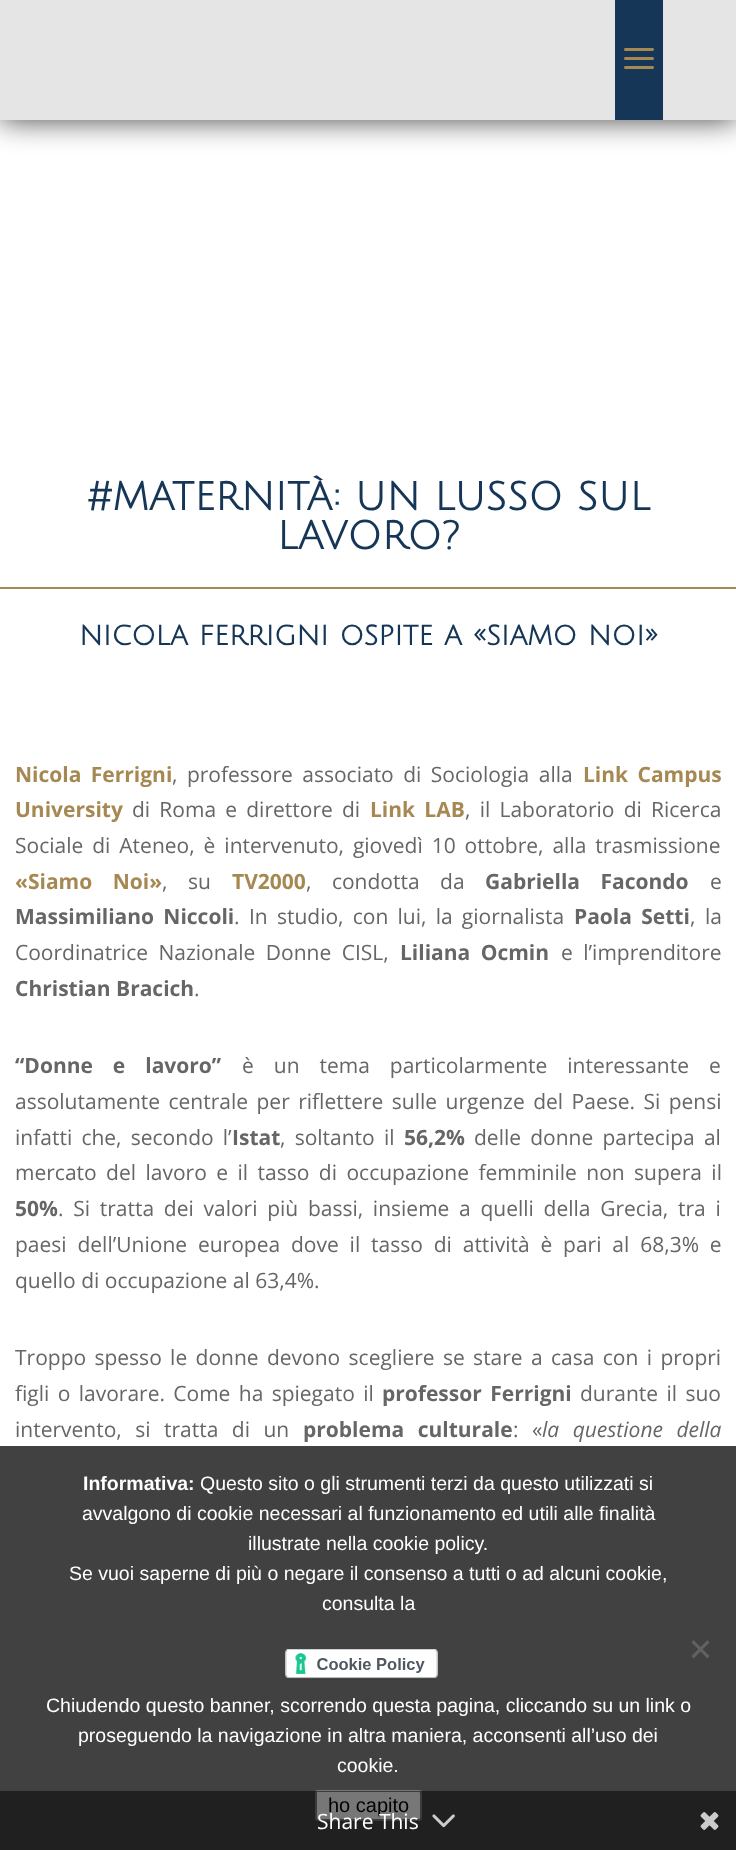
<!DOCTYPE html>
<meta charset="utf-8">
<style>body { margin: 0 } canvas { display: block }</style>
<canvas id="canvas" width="736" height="1850"></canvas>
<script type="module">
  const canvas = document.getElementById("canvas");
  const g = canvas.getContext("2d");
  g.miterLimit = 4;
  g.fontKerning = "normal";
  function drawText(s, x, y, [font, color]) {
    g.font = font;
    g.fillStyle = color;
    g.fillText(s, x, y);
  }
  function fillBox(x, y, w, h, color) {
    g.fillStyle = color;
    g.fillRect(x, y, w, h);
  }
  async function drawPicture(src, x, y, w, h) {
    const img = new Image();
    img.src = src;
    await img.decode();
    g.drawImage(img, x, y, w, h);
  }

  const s1 = ["bold 39px Julius Sans One", "#153656"];
  const s2 = ["bold 30px Julius Sans One", "#153656"];
  const s3 = ["bold 21px Open Sans", "#A68952"];
  const s4 = ["21px Open Sans", "#666666"];
  const s5 = ["bold 21px Open Sans", "#666666"];
  const s6 = ["italic 21px Open Sans", "#666666"];
  const s7 = ["bold 19.5px Liberation Sans", "#FFFFFF"];
  const s8 = ["19.5px Liberation Sans", "#FFFFFF"];
  const s9 = ["20px Liberation Sans", "#000000"];
  const s10 = ["21px Open Sans", "#FFFFFF"];

  fillBox(0, 0, 736, 1850, "#FFFFFF");
  g.fillStyle = "rgba(0, 0, 0, 0.75)";
  g.filter = "blur(15px)";
  g.beginPath();
  g.rect(0, 0, 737, 120);
  g.fill();
  g.filter = "none";
  fillBox(0, 0, 736, 120, "#E5E5E5");
  fillBox(615, 0, 48, 120, "#153656");
  await drawPicture("pic1.png", 624, 48, 30, 21);
  drawText("#MATERNITÀ: UN LUSSO SUL", 87, 510, s1);
  drawText("LAVORO?", 277, 549, s1);
  fillBox(0, 587, 736, 2, "#A68952");
  drawText("nicola ferrigni ospite a «siamo noi»", 79, 645, s2);
  g.wordSpacing = "4px";
  drawText("Nicola Ferrigni", 15, 782, s3);
  drawText(", professore associato di Sociologia alla", 172, 782, s4);
  drawText("Link Campus", 583, 782, s3);
  g.wordSpacing = "0px";
  drawText("University", 15, 817, s3);
  g.wordSpacing = "3.75px";
  drawText("di Roma e direttore di", 132, 817, s4);
  drawText("Link LAB", 370, 817, s3);
  drawText(", il Laboratorio di Ricerca", 465, 817, s4);
  g.wordSpacing = "3.5px";
  drawText("Sociale di Ateneo, è intervenuto, giovedì 10 ottobre, alla trasmissione", 15, 853, s4);
  g.wordSpacing = "15px";
  drawText("«Siamo Noi»", 15, 889, s3);
  drawText(", su", 162, 889, s4);
  g.wordSpacing = "0px";
  drawText("TV2000", 232, 889, s3);
  g.wordSpacing = "15px";
  drawText(", condotta da", 306, 889, s4);
  drawText("Gabriella Facondo", 485, 889, s5);
  g.wordSpacing = "0px";
  drawText("e", 710, 889, s4);
  g.wordSpacing = "3.75px";
  drawText("Massimiliano Niccoli", 15, 924, s5);
  g.wordSpacing = "0px";
  drawText(".", 234, 924, s4);
  g.wordSpacing = "3.75px";
  drawText("In studio, con lui, la giornalista", 249, 924, s4);
  drawText("Paola Setti", 574, 924, s5);
  g.wordSpacing = "4px";
  drawText(", la", 690, 924, s4);
  g.wordSpacing = "5px";
  drawText("Coordinatrice Nazionale Donne CISL,", 15, 960, s4);
  drawText("Liliana Ocmin", 400, 960, s5);
  drawText("e l’imprenditore", 561, 960, s4);
  g.wordSpacing = "0px";
  drawText("Christian Bracich", 15, 996, s5);
  drawText(".", 194, 996, s4);
  g.wordSpacing = "14.5px";
  drawText("“Donne e lavoro”", 15, 1073, s5);
  drawText("è un tema particolarmente interessante e", 242, 1073, s4);
  g.wordSpacing = "3px";
  drawText("assolutamente centrale per riflettere sulle urgenze del Paese. Si pensi", 15, 1109, s4);
  g.wordSpacing = "3.75px";
  drawText("infatti che, secondo l’", 15, 1145, s4);
  g.wordSpacing = "0px";
  drawText("Istat", 232, 1145, s5);
  g.wordSpacing = "3.75px";
  drawText(", soltanto il", 280, 1145, s4);
  g.wordSpacing = "0px";
  drawText("56,2%", 404, 1145, s5);
  g.wordSpacing = "3.75px";
  drawText("delle donne partecipa al", 474, 1145, s4);
  g.wordSpacing = "4px";
  drawText("mercato del lavoro e il tasso di occupazione femminile non supera il", 15, 1180, s4);
  g.wordSpacing = "0px";
  drawText("50%", 15, 1216, s5);
  g.wordSpacing = "4.25px";
  drawText(". Si tratta dei valori più bassi, insieme a quelli della Grecia, tra i", 58, 1216, s4);
  g.wordSpacing = "5.4px";
  drawText("paesi dell’Unione europea dove il tasso di attività è pari al 68,3% e", 15, 1252, s4);
  g.wordSpacing = "0px";
  drawText("quello di occupazione al 63,4%.", 15, 1288, s4);
  g.wordSpacing = "2.9px";
  drawText("Troppo spesso le donne devono scegliere se stare a casa con i propri", 15, 1365, s4);
  drawText("figli o lavorare. Come ha spiegato il", 15, 1401, s4);
  g.wordSpacing = "3px";
  drawText("professor Ferrigni", 382, 1401, s5);
  g.wordSpacing = "2.9px";
  drawText("durante il suo", 580, 1401, s4);
  g.wordSpacing = "8px";
  drawText("intervento, si tratta di un", 15, 1437, s4);
  drawText("problema culturale", 303, 1437, s5);
  drawText(": «", 513, 1437, s4);
  drawText("la questione della", 542, 1437, s6);
  fillBox(0, 1446, 736, 404, "#414141");
  g.wordSpacing = "0px";
  drawText("Informativa:", 83, 1490, s7);
  drawText("Questo sito o gli strumenti terzi da questo utilizzati si", 200, 1490, s8);
  drawText("avvalgono di cookie necessari al funzionamento ed utili alle finalità", 82, 1520, s8);
  drawText("illustrate nella cookie policy.", 248, 1550, s8);
  drawText("Se vuoi saperne di più o negare il consenso a tutti o ad alcuni cookie,", 69, 1580, s8);
  drawText("consulta la", 322, 1610, s8);
  await drawPicture("pic2.png", 285, 1649, 153, 31);
  drawText("Chiudendo questo banner, scorrendo questa pagina, cliccando su un link o", 46, 1712, s8);
  drawText("proseguendo la navigazione in altra maniera, acconsenti all’uso dei", 78, 1742, s8);
  drawText("cookie.", 337, 1772, s8);
  g.fillStyle = "#616161";
  g.beginPath();
  g.moveTo(707.5, 1640);
  g.lineTo(709.5, 1642.5);
  g.lineTo(693.5, 1658.5);
  g.lineTo(691.5, 1656);
  g.closePath();
  g.fill();
  g.beginPath();
  g.moveTo(691.5, 1642.5);
  g.lineTo(693.5, 1640);
  g.lineTo(709.5, 1656);
  g.lineTo(707.5, 1658.5);
  g.closePath();
  g.fill();
  g.fillStyle = "#EFEFEF";
  g.beginPath();
  g.roundRect(316, 1791, 105, 29, 2);
  g.fill();
  g.strokeStyle = "#767676";
  g.lineWidth = 2;
  g.stroke();
  drawText("ho capito", 328, 1812, s9);
  fillBox(0, 1791, 736, 59, "rgba(0, 0, 0, 0.5)");
  drawText("Share This", 317, 1829, s10);
  await drawPicture("pic3.png", 432, 1814, 23, 14);
  await drawPicture("pic4.png", 700, 1812, 19, 18);
</script>
